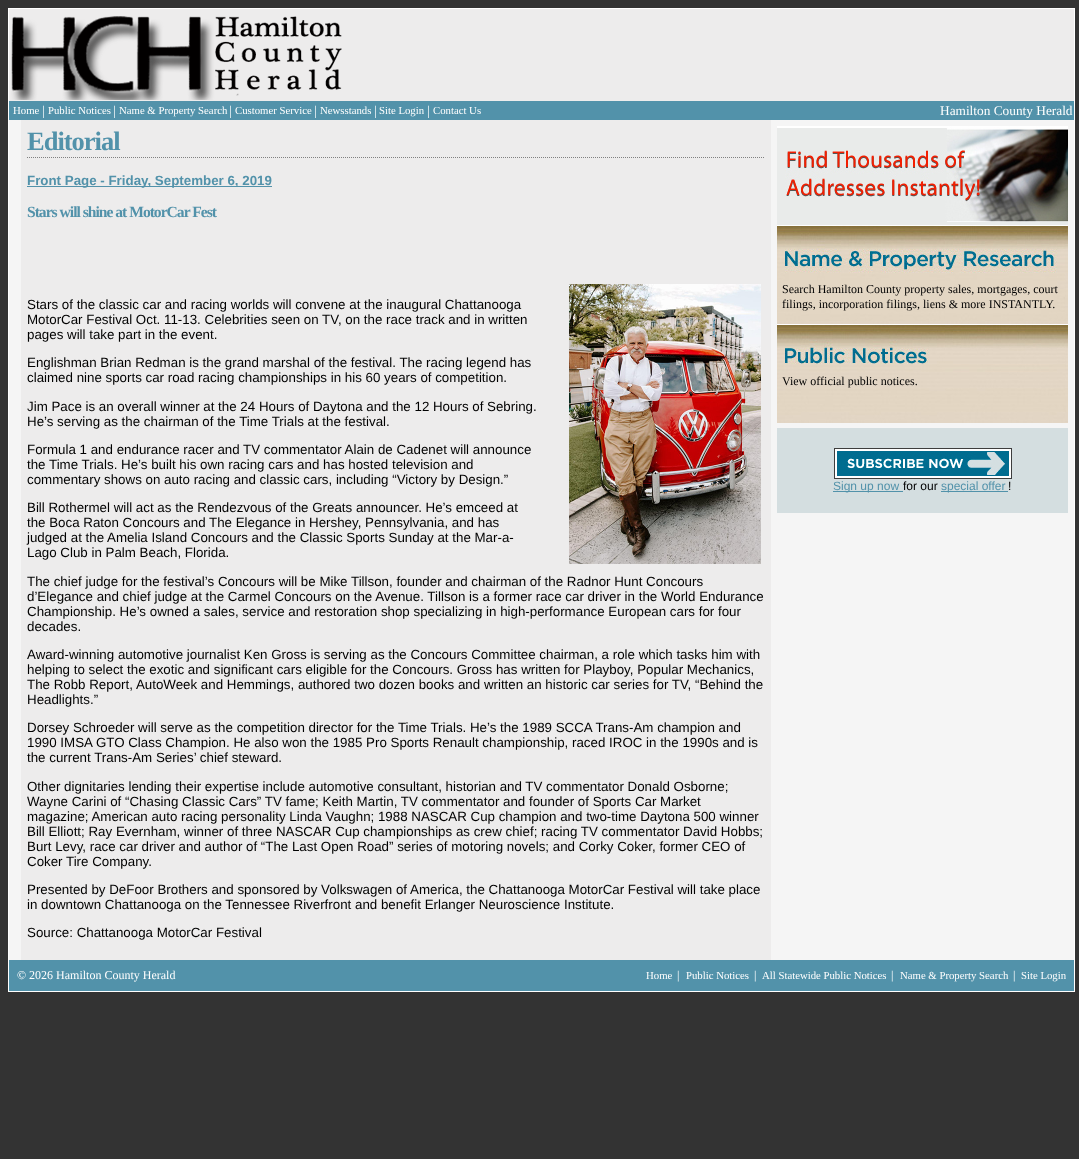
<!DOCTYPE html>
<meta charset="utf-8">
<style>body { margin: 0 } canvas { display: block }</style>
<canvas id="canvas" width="1079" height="1159"></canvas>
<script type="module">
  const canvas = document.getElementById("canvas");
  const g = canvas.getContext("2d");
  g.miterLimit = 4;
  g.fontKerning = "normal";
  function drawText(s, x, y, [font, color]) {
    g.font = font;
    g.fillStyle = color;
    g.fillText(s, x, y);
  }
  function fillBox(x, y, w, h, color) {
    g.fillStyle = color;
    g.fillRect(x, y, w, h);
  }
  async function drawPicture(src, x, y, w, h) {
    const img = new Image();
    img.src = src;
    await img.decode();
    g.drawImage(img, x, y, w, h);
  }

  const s1 = ["10.75px Liberation Serif", "#FFFFFF"];
  const s2 = ["13.33px Liberation Serif", "#FFFFFF"];
  const s3 = ["bold 26.5px Liberation Serif", "#5292AA"];
  const s4 = ["bold 13.33px Liberation Sans", "#5292AA"];
  const s5 = ["bold 15.6px Liberation Serif", "#5292AA"];
  const s6 = ["13.33px Liberation Sans", "#000000"];
  const s7 = ["12px Liberation Serif", "#000000"];
  const s8 = ["12px Liberation Sans", "#5292AA"];
  const s9 = ["12px Liberation Sans", "#000000"];
  const s10 = ["12px Liberation Serif", "#FFFFFF"];

  fillBox(0, 0, 1079, 1159, "#333333");
  fillBox(9, 9, 1065, 951, "#EDECEC");
  fillBox(8, 8, 1067, 1, "#FFFFFF");
  fillBox(1074, 8, 1, 984, "#FFFFFF");
  fillBox(8, 991, 1067, 1, "#FFFFFF");
  fillBox(8, 8, 1, 984, "#FFFFFF");
  await drawPicture("pic1.png", 11, 16, 331, 84);
  fillBox(9, 101, 1065, 19, "#5292AA");
  drawText("Home", 13, 114, s1);
  drawText("|", 42, 115, s2);
  drawText("Public Notices", 48, 114, s1);
  drawText("|", 113, 115, s2);
  drawText("Name & Property Search", 119, 114, s1);
  drawText("|", 229, 115, s2);
  drawText("Customer Service", 235, 114, s1);
  drawText("|", 314, 115, s2);
  drawText("Newsstands", 320, 114, s1);
  drawText("|", 374, 115, s2);
  drawText("Site Login", 379, 114, s1);
  drawText("|", 427, 115, s2);
  drawText("Contact Us", 433, 114, s1);
  drawText("Hamilton County Herald", 940, 115, s2);
  fillBox(9, 120, 12, 840, "#F5F5F5");
  g.beginPath();
  g.moveTo(27, 157.5);
  g.lineTo(765, 157.5);
  g.strokeStyle = "#808080";
  g.setLineDash([1, 1]);
  g.stroke();
  g.letterSpacing = "-1px";
  drawText("Editorial", 27, 150, s3);
  fillBox(27, 186, 245, 1, "#5292AA");
  g.letterSpacing = "0px";
  drawText("Front Page - Friday, September 6, 2019", 27, 185, s4);
  g.letterSpacing = "-1px";
  drawText("Stars will shine at MotorCar Fest", 27, 217, s5);
  await drawPicture("pic2.png", 569, 284, 192, 280);
  g.letterSpacing = "0px";
  drawText("Stars of the classic car and racing worlds will convene at the inaugural Chattanooga", 27, 309, s6);
  drawText("MotorCar Festival Oct. 11-13. Celebrities seen on TV, on the race track and in written", 27, 324, s6);
  drawText("pages will take part in the event.", 27, 339, s6);
  drawText("Englishman Brian Redman is the grand marshal of the festival. The racing legend has", 27, 367, s6);
  drawText("claimed nine sports car road racing championships in his 60 years of competition.", 27, 382, s6);
  drawText("Jim Pace is an overall winner at the 24 Hours of Daytona and the 12 Hours of Sebring.", 27, 411, s6);
  drawText("He’s serving as the chairman of the Time Trials at the festival.", 27, 426, s6);
  drawText("Formula 1 and endurance racer and TV commentator Alain de Cadenet will announce", 27, 454, s6);
  drawText("the Time Trials. He’s built his own racing cars and has hosted television and", 27, 469, s6);
  drawText("commentary shows on auto racing and classic cars, including “Victory by Design.”", 27, 484, s6);
  drawText("Bill Rothermel will act as the Rendezvous of the Greats announcer. He’s emceed at", 27, 512, s6);
  drawText("the Boca Raton Concours and The Elegance in Hershey, Pennsylvania, and has", 27, 527, s6);
  drawText("judged at the Amelia Island Concours and the Classic Sports Sunday at the Mar-a-", 27, 542, s6);
  drawText("Lago Club in Palm Beach, Florida.", 27, 557, s6);
  drawText("The chief judge for the festival’s Concours will be Mike Tillson, founder and chairman of the Radnor Hunt Concours", 27, 586, s6);
  drawText("d’Elegance and chief judge at the Carmel Concours on the Avenue. Tillson is a former race car driver in the World Endurance", 27, 601, s6);
  drawText("Championship. He’s owned a sales, service and restoration shop specializing in high-performance European cars for four", 27, 616, s6);
  drawText("decades.", 27, 631, s6);
  drawText("Award-winning automotive journalist Ken Gross is serving as the Concours Committee chairman, a role which tasks him with", 27, 659, s6);
  drawText("helping to select the exotic and significant cars eligible for the Concours. Gross has written for Playboy, Popular Mechanics,", 27, 674, s6);
  drawText("The Robb Report, AutoWeek and Hemmings, authored two dozen books and written an historic car series for TV, “Behind the", 27, 689, s6);
  drawText("Headlights.”", 27, 704, s6);
  drawText("Dorsey Schroeder will serve as the competition director for the Time Trials. He’s the 1989 SCCA Trans-Am champion and", 27, 732, s6);
  drawText("1990 IMSA GTO Class Champion. He also won the 1985 Pro Sports Renault championship, raced IROC in the 1990s and is", 27, 747, s6);
  drawText("the current Trans-Am Series’ chief steward.", 27, 762, s6);
  drawText("Other dignitaries lending their expertise include automotive consultant, historian and TV commentator Donald Osborne;", 27, 791, s6);
  drawText("Wayne Carini of “Chasing Classic Cars” TV fame; Keith Martin, TV commentator and founder of Sports Car Market", 27, 806, s6);
  drawText("magazine; American auto racing personality Linda Vaughn; 1988 NASCAR Cup champion and two-time Daytona 500 winner", 27, 821, s6);
  drawText("Bill Elliott; Ray Evernham, winner of three NASCAR Cup championships as crew chief; racing TV commentator David Hobbs;", 27, 836, s6);
  drawText("Burt Levy, race car driver and author of “The Last Open Road” series of motoring novels; and Corky Coker, former CEO of", 27, 851, s6);
  drawText("Coker Tire Company.", 27, 866, s6);
  drawText("Presented by DeFoor Brothers and sponsored by Volkswagen of America, the Chattanooga MotorCar Festival will take place", 27, 894, s6);
  drawText("in downtown Chattanooga on the Tennessee Riverfront and benefit Erlanger Neuroscience Institute.", 27, 909, s6);
  drawText("Source: Chattanooga MotorCar Festival", 27, 937, s6);
  fillBox(771, 120, 303, 840, "#F5F5F5");
  await drawPicture("pic3.png", 777, 126, 291, 99);
  await drawPicture("pic4.png", 777, 225, 291, 99);
  drawText("Search Hamilton County property sales, mortgages, court", 782, 293, s7);
  drawText("filings, incorporation filings, liens & more INSTANTLY.", 782, 308, s7);
  await drawPicture("pic5.png", 777, 324, 291, 99);
  drawText("View official public notices.", 782, 385, s7);
  fillBox(777, 428, 291, 85, "#D4DEE0");
  await drawPicture("pic6.png", 834, 448, 178, 31);
  fillBox(833, 491, 70, 1, "#5292AA");
  drawText("Sign up now", 833, 490, s8);
  drawText("for our", 903, 490, s9);
  fillBox(941, 491, 67, 1, "#5292AA");
  drawText("special offer", 941, 490, s8);
  drawText("!", 1008, 490, s9);
  fillBox(9, 960, 1065, 31, "#5292AA");
  drawText("© 2026 Hamilton County Herald", 17, 979, s10);
  drawText("Home", 646, 979, s1);
  drawText("|", 677, 979, s10);
  drawText("Public Notices", 686, 979, s1);
  drawText("|", 754, 979, s10);
  drawText("All Statewide Public Notices", 762, 979, s1);
  drawText("|", 891, 979, s10);
  drawText("Name & Property Search", 900, 979, s1);
  drawText("|", 1013, 979, s10);
  drawText("Site Login", 1021, 979, s1);
</script>
